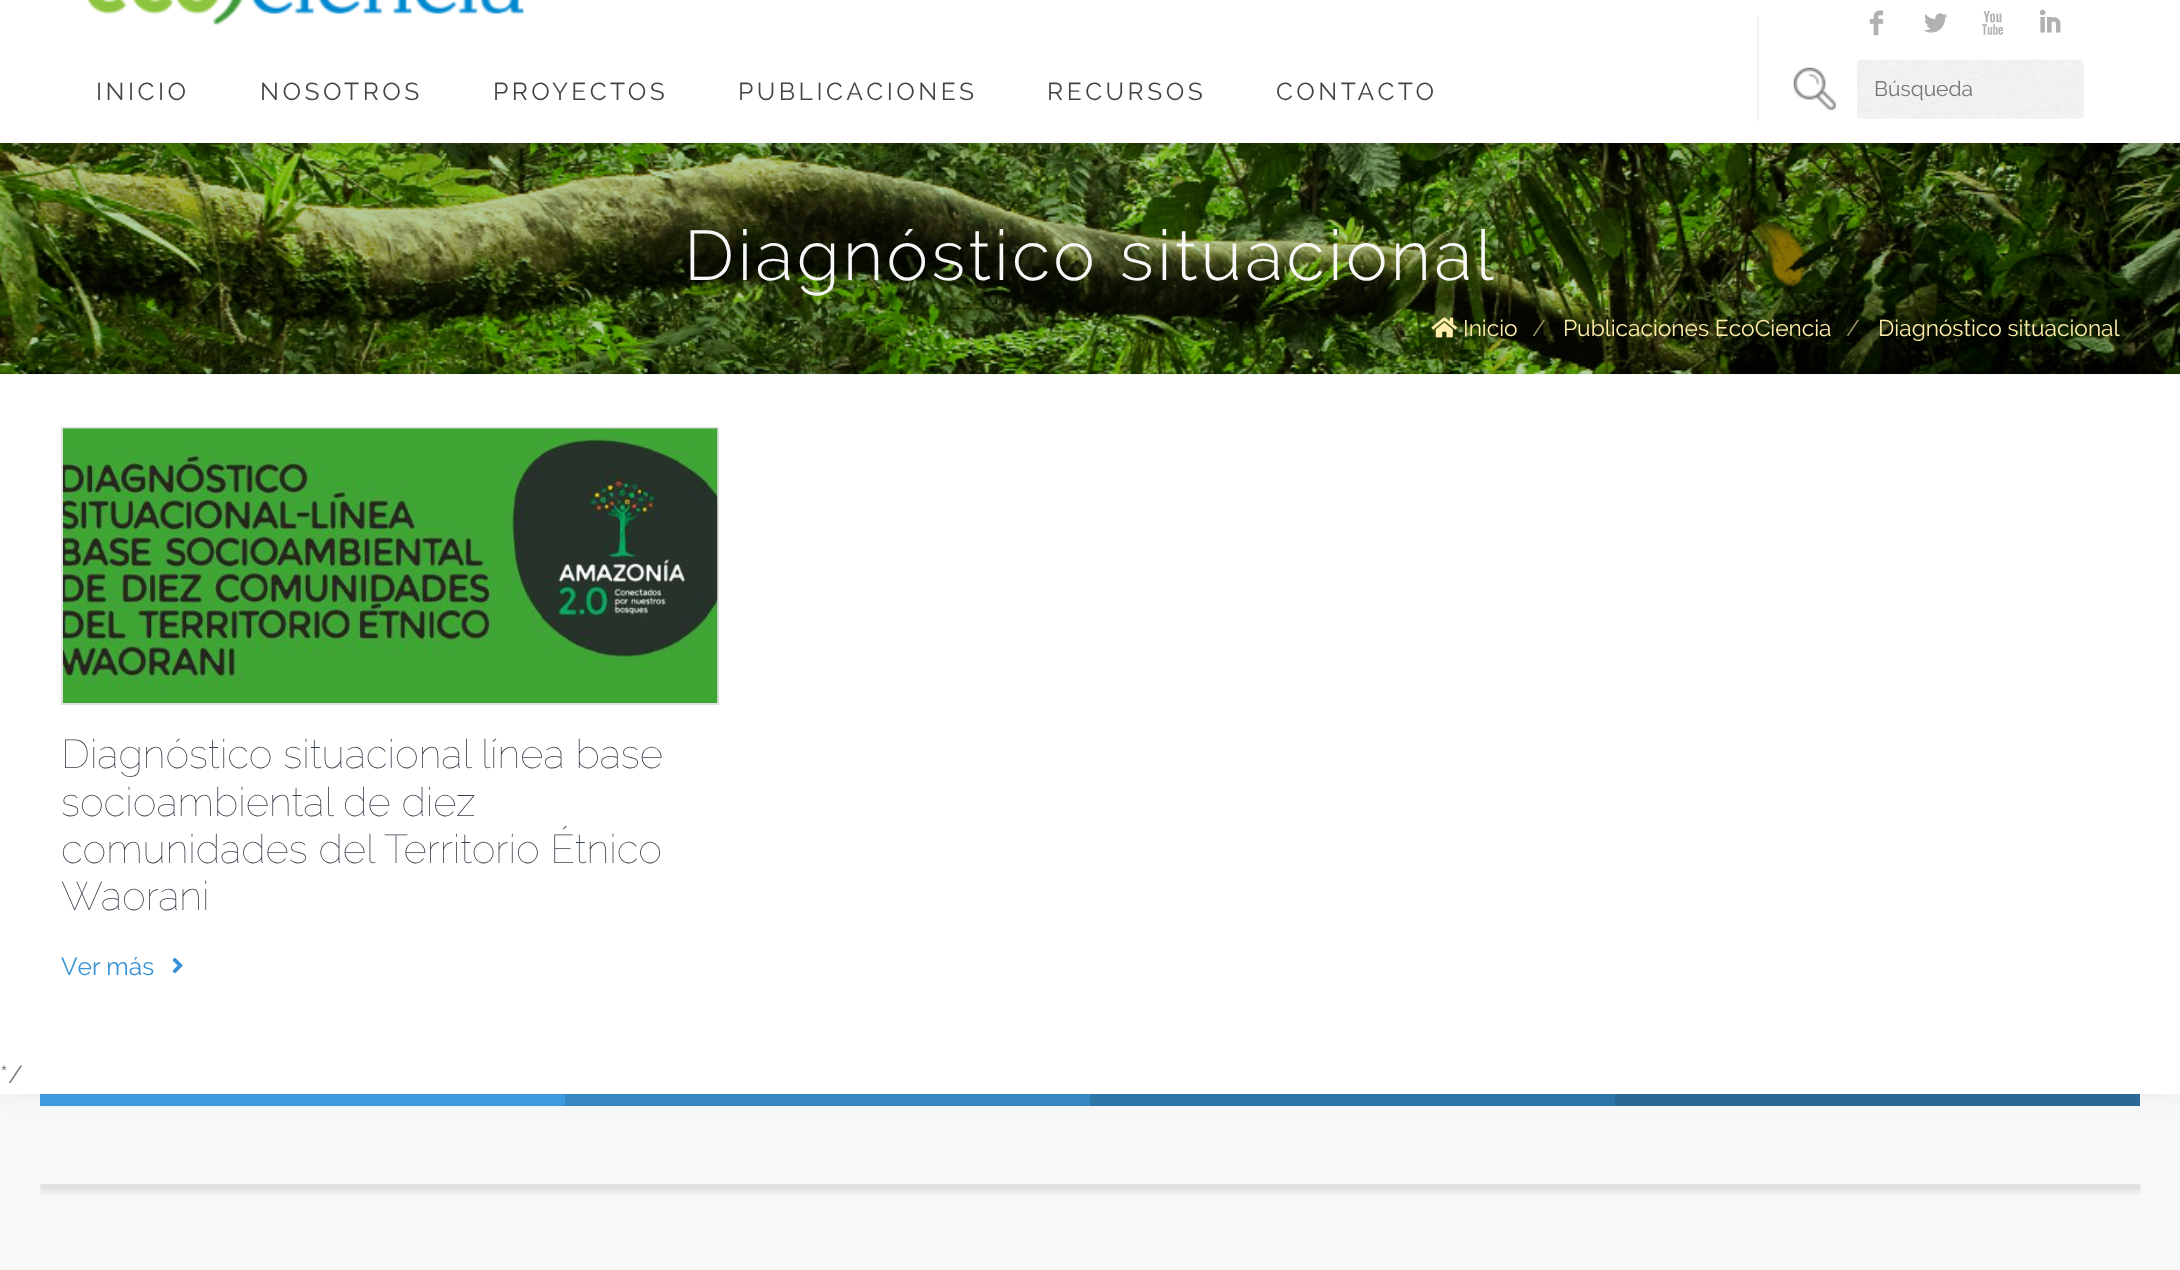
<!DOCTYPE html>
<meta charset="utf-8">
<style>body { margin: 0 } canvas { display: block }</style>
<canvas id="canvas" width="2180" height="1270"></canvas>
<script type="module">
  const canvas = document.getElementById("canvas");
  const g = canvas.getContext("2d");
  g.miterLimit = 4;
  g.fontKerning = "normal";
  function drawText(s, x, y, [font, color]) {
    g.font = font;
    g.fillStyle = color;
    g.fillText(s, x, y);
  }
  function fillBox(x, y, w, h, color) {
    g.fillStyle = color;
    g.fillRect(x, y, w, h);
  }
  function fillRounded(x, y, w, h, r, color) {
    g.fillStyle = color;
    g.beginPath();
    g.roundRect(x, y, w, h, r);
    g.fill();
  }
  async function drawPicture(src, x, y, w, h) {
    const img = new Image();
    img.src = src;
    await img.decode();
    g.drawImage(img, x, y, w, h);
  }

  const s1 = ["40.25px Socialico", "#B1B1B1"];
  const s2 = ["24.5px Raleway", "#444444"];
  const s3 = ["21px Raleway", "#757575"];
  const s4 = ["300 70px Raleway", "#F8F8F8"];
  const s5 = ["22.75px Raleway", "#FFEEAA"];
  const s6 = ["22.75px Raleway", "#9D9467"];
  const s7 = ["100 40.25px Raleway", "#37414E"];
  const s8 = ["24.5px Raleway", "#3693D5"];
  const s9 = ["24.5px Raleway", "#787E87"];

  fillBox(0, 0, 2180, 1270, "#F7F8F8");
  g.fillStyle = "rgba(0, 0, 0, 0.06)";
  g.filter = "blur(13px)";
  g.beginPath();
  g.rect(0, -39, 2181, 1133);
  g.fill();
  g.filter = "none";
  fillBox(0, 0, 2180, 1094, "#FFFFFF");
  await drawPicture("pic1.png", 87, 0, 437, 25);
  drawText("F", 1868, 37, s1);
  drawText("L", 1919, 37, s1);
  drawText("X", 1980, 37, s1);
  drawText("I", 2038, 37, s1);
  g.letterSpacing = "3.5px";
  drawText("INICIO", 96, 100, s2);
  drawText("NOSOTROS", 260, 100, s2);
  drawText("PROYECTOS", 493, 100, s2);
  drawText("PUBLICACIONES", 738, 100, s2);
  drawText("RECURSOS", 1047, 100, s2);
  drawText("CONTACTO", 1276, 100, s2);
  fillBox(1757, 16, 2, 105, "#F2F2F2");
  await drawPicture("pic2.png", 1793, 67, 43, 43);
  fillRounded(1857, 60, 227, 59, 5, "#F3F3F3");
  await drawPicture("pic3.png", 1857, 59, 227, 59);
  g.letterSpacing = "0px";
  drawText("Búsqueda", 1874, 96, s3);
  await drawPicture("pic5.png", 0, 143, 2180, 231);
  await drawPicture("pic4.png", 0, 143, 2180, 10);
  fillBox(0, 374, 2180, 1, "#F7F9F9");
  g.letterSpacing = "3.5px";
  drawText("Diagnóstico situacional", 684, 280, s4);
  await drawPicture("pic6.png", 1431, 317, 27, 21);
  g.letterSpacing = "0px";
  drawText("Inicio", 1463, 336, s5);
  drawText("/", 1532, 336, s6);
  drawText("Publicaciones EcoCiencia", 1563, 336, s5);
  drawText("/", 1846, 336, s6);
  drawText("Diagnóstico situacional", 1878, 336, s5);
  g.strokeStyle = "#E0E0E0";
  g.lineWidth = 2;
  g.strokeRect(62, 428, 656, 276);
  await drawPicture("pic7.png", 63, 428, 655, 275);
  drawText("Diagnóstico situacional línea base", 61, 768, s7);
  drawText("socioambiental de diez", 61, 816, s7);
  drawText("comunidades del Territorio Étnico", 61, 863, s7);
  drawText("Waorani", 61, 910, s7);
  drawText("Ver más", 61, 975, s8);
  await drawPicture("pic8.png", 172, 957, 11, 17);
  drawText("*/", 0, 1083, s9);
  fillBox(40, 1094, 525, 12, "#3D9BDD");
  fillBox(565, 1094, 525, 12, "#3688C2");
  fillBox(1090, 1094, 525, 12, "#2E76A8");
  fillBox(1615, 1094, 525, 12, "#296996");
  await drawPicture("pic9.png", 40, 1184, 2101, 11);
</script>
